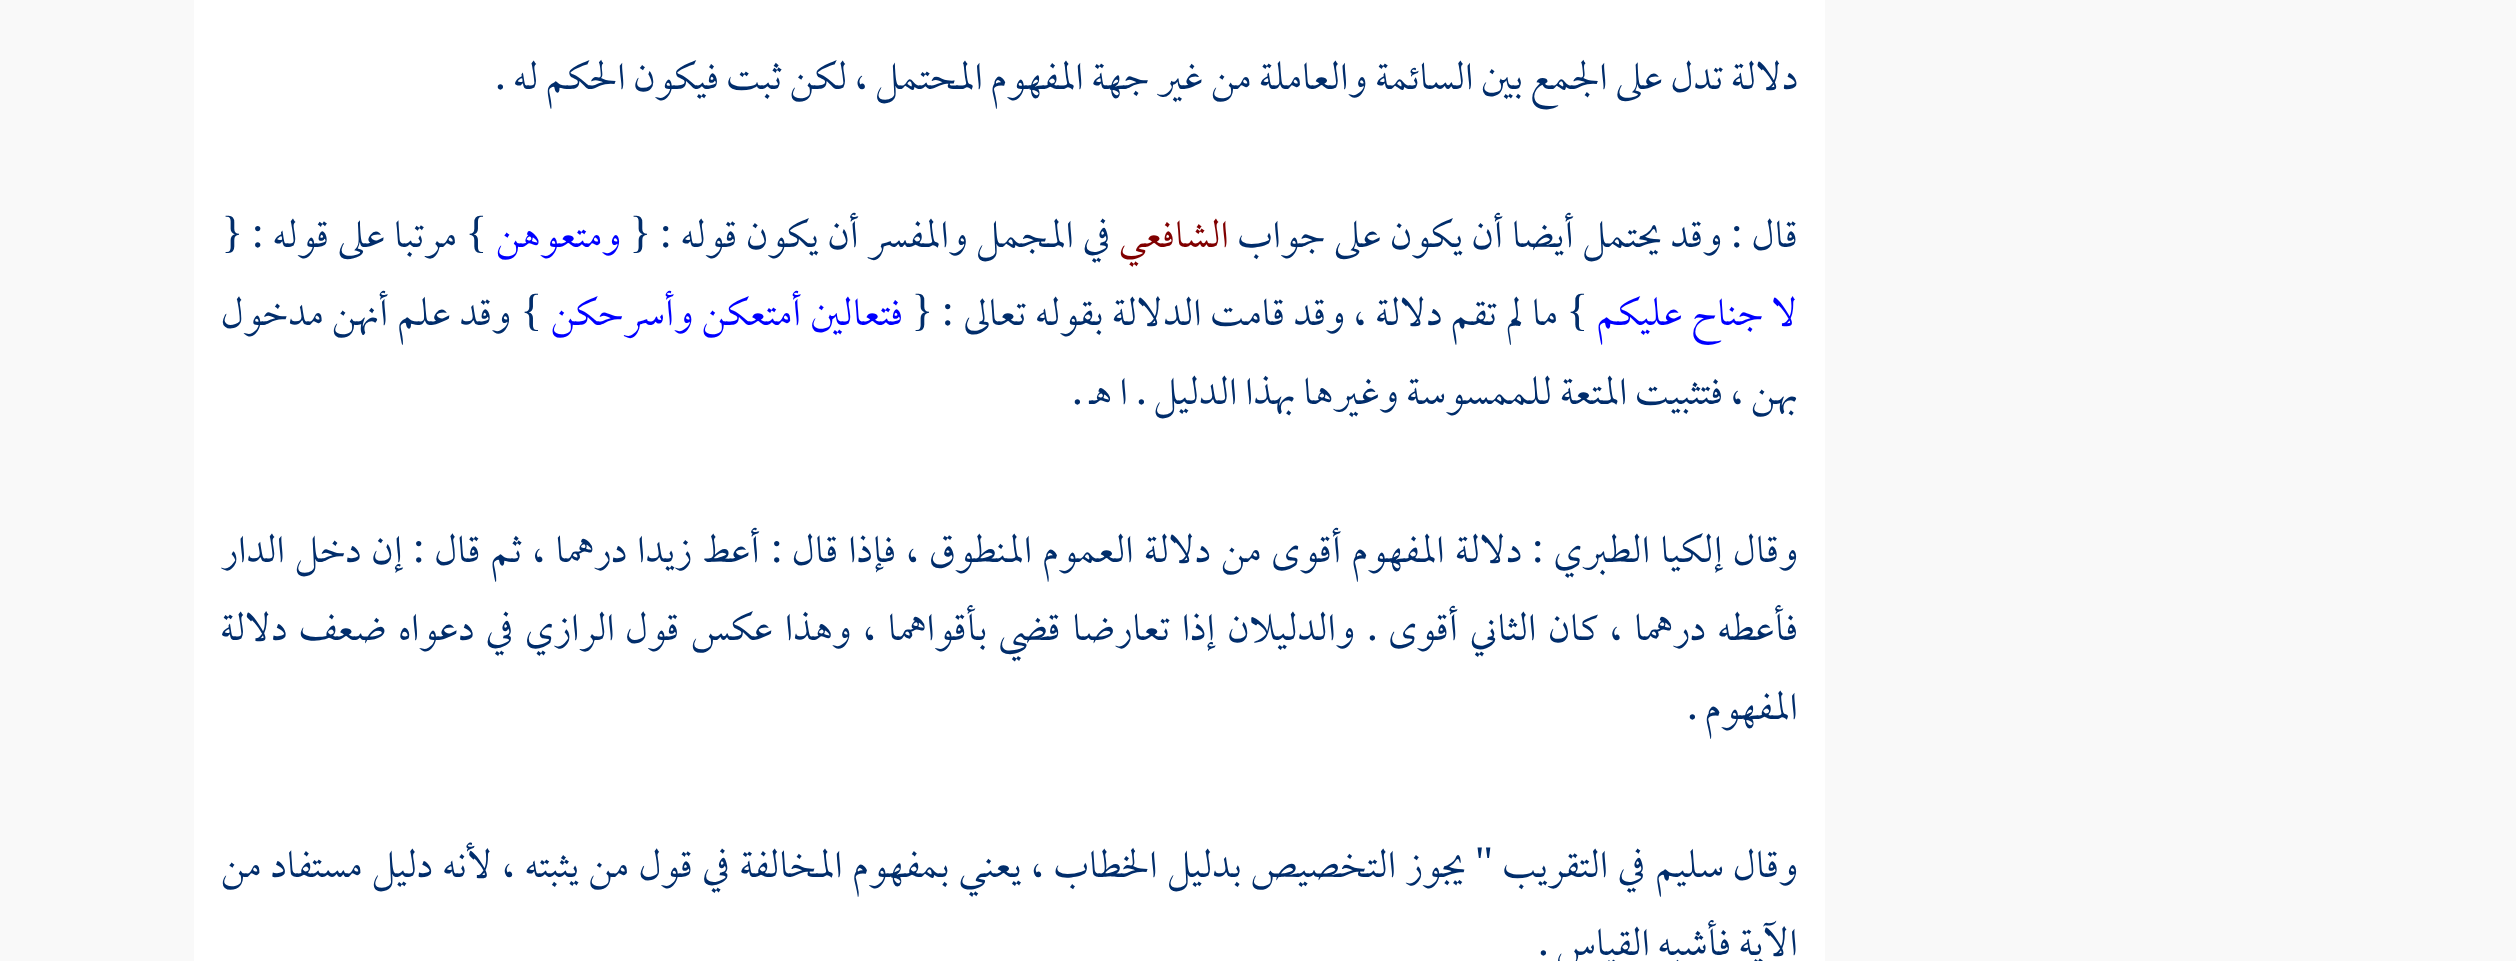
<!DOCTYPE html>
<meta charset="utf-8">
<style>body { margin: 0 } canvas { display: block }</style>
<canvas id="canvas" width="2516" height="961"></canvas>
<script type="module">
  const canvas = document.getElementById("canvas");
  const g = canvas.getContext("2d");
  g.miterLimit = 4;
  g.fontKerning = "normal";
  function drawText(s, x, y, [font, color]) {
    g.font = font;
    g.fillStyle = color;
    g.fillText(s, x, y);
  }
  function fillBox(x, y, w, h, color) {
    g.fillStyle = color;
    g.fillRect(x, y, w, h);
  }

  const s1 = ["300 45px 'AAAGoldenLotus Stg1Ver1'", "#012D6B"];
  const s2 = ["45px Liberation Serif", "#012D6B"];
  const s3 = ["300 45px 'AAAGoldenLotus Stg1Ver1'", "#800000"];
  const s4 = ["300 45px 'AAAGoldenLotus Stg1Ver1'", "#0000FF"];

  fillBox(0, 0, 2516, 961, "#F9F9F9");
  fillBox(194, 0, 1631, 961, "#FFFFFF");
  g.direction = "rtl";
  drawText("دلالة تدل على الجمع بين السائمة والعاملة من غير جهة المفهوم المحتمل ، لكن ثبت فيكون الحكم له", 1798, 89, s1);
  drawText(".", 506, 89, s2);
  drawText("قال", 1798, 247, s1);
  drawText(":", 1743, 247, s2);
  g.wordSpacing = "1px";
  drawText("وقد يحتمل أيضا أن يكون على جواب", 1722, 247, s1);
  g.wordSpacing = "0px";
  drawText("الشافعي", 1229, 247, s3);
  g.wordSpacing = "1px";
  drawText("في المجمل والمفسر أن يكون قوله", 1110, 247, s1);
  g.wordSpacing = "0px";
  drawText(":", 672, 247, s2);
  drawText("{", 651, 247, s2);
  drawText("ومتعوهن", 621, 247, s4);
  drawText("}", 487, 247, s2);
  g.wordSpacing = "1px";
  drawText("مرتبا على قوله", 457, 247, s1);
  g.wordSpacing = "0px";
  drawText(":", 264, 247, s2);
  drawText("{", 243, 247, s2);
  g.wordSpacing = "1px";
  drawText("لا جناح عليكم", 1798, 325, s4);
  g.wordSpacing = "0px";
  drawText("}", 1588, 325, s2);
  g.wordSpacing = "1px";
  drawText("ما لم تقم دلالة ، وقد قامت الدلالة بقوله تعالى", 1558, 325, s1);
  g.wordSpacing = "0px";
  drawText(":", 954, 325, s2);
  drawText("{", 933, 325, s2);
  g.wordSpacing = "1px";
  drawText("فتعالين أمتعكن وأسرحكن", 903, 325, s4);
  g.wordSpacing = "0px";
  drawText("}", 542, 325, s2);
  g.wordSpacing = "1px";
  drawText("وقد علم أنهن مدخول", 511, 325, s1);
  g.wordSpacing = "0px";
  drawText("بهن ، فتثبيت المتعة للممسوسة وغيرها بهذا الدليل", 1798, 404, s1);
  drawText(".", 1147, 404, s2);
  drawText("ا هـ", 1128, 404, s1);
  drawText(".", 1083, 404, s2);
  drawText("وقال", 1798, 562, s1);
  g.wordSpacing = "2.5px";
  drawText("إلكيا الطبري", 1723, 562, s1);
  g.wordSpacing = "0px";
  drawText(":", 1544, 562, s2);
  g.wordSpacing = "2.5px";
  drawText("دلالة المفهوم أقوى من دلالة العموم المنطوق ، فإذا قال", 1522, 562, s1);
  g.wordSpacing = "0px";
  drawText(":", 783, 562, s2);
  g.wordSpacing = "2.5px";
  drawText("أعط زيدا درهما ، ثم قال", 760, 562, s1);
  g.wordSpacing = "0px";
  drawText(":", 425, 562, s2);
  g.wordSpacing = "2.5px";
  drawText("إن دخل الدار", 403, 562, s1);
  g.wordSpacing = "4px";
  drawText("فأعطه درهما ، كان الثاني أقوى", 1798, 640, s1);
  g.wordSpacing = "0px";
  drawText(".", 1378, 640, s2);
  g.wordSpacing = "4px";
  drawText("والدليلان إذا تعارضا قضي بأقواهما ، وهذا عكس قول", 1355, 640, s1);
  g.wordSpacing = "0px";
  drawText("الرازي", 615, 640, s1);
  g.wordSpacing = "4px";
  drawText("في دعواه ضعف دلالة", 513, 640, s1);
  g.wordSpacing = "0px";
  drawText("المفهوم", 1798, 719, s1);
  drawText(".", 1698, 719, s2);
  drawText("وقال", 1798, 877, s1);
  drawText("سليم", 1724, 877, s1);
  g.wordSpacing = "1.9px";
  drawText("في التقريب", 1645, 877, s1);
  g.wordSpacing = "0px";
  drawText("\"", 1493, 877, s2);
  g.wordSpacing = "1.9px";
  drawText("يجوز التخصيص بدليل الخطاب ، يعني بمفهوم المخالفة في قول من يثبته ، لأنه دليل مستفاد من", 1466, 877, s1);
  g.wordSpacing = "0px";
  drawText("الآية فأشبه القياس", 1798, 955, s1);
  drawText(".", 1549, 955, s2);
</script>
